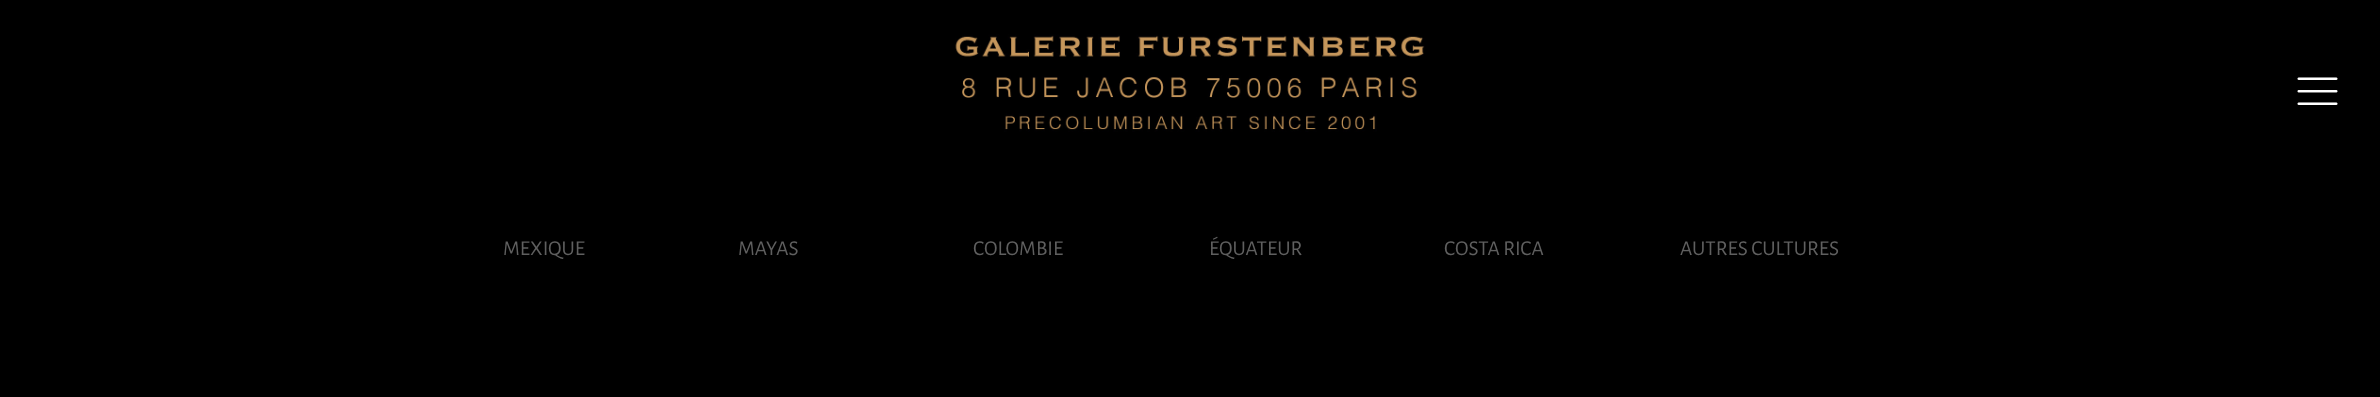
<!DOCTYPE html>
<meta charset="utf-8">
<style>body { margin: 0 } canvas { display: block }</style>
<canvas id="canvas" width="2380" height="397"></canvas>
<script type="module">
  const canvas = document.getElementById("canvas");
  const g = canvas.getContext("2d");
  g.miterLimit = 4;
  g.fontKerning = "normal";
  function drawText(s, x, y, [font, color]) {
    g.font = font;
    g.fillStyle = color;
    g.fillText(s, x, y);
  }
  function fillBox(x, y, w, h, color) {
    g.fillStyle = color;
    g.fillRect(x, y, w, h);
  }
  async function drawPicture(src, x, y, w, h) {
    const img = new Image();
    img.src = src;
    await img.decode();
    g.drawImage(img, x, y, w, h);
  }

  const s1 = ["21.25px Alegreya Sans", "#5F5F5F"];

  fillBox(0, 0, 2380, 397, "#000000");
  await drawPicture("pic1.png", 955, 34, 470, 98);
  await drawPicture("pic2.png", 2297, 77, 41, 28);
  drawText("MEXIQUE", 503, 255, s1);
  drawText("MAYAS", 738, 255, s1);
  drawText("COLOMBIE", 973, 255, s1);
  drawText("ÉQUATEUR", 1209, 255, s1);
  drawText("COSTA RICA", 1444, 255, s1);
  drawText("AUTRES CULTURES", 1680, 255, s1);
</script>
